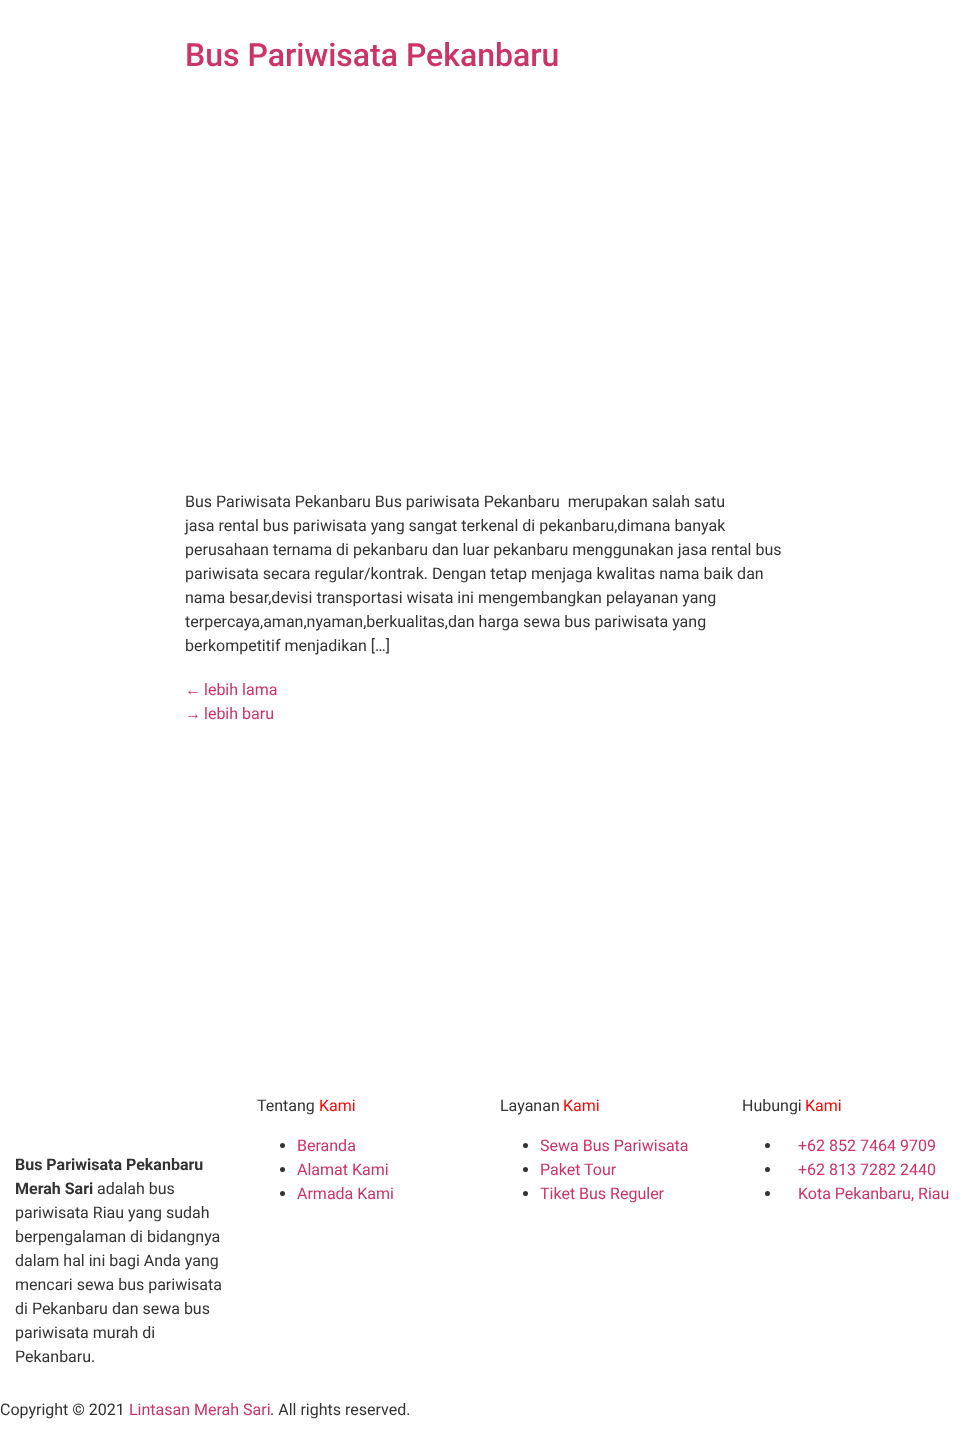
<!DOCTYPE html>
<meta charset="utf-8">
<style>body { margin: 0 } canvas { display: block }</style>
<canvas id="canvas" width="969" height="1439"></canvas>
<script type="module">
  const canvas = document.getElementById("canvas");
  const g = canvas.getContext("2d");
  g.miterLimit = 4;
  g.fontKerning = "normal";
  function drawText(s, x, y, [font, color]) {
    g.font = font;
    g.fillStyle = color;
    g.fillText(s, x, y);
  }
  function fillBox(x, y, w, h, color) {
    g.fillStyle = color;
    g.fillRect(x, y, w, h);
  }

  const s1 = ["500 32px Roboto", "#CC3366"];
  const s2 = ["16px Roboto", "#333333"];
  const s3 = ["16px Liberation Sans", "#CC3366"];
  const s4 = ["16px Roboto", "#CC3366"];
  const s5 = ["bold 16px Roboto", "#333333"];
  const s6 = ["16px Roboto", "#FC0606"];

  fillBox(0, 0, 969, 1439, "#FFFFFF");
  drawText("Bus Pariwisata Pekanbaru", 185, 66, s1);
  drawText("Bus Pariwisata Pekanbaru Bus pariwisata Pekanbaru  merupakan salah satu", 185, 507, s2);
  drawText("jasa rental bus pariwisata yang sangat terkenal di pekanbaru,dimana banyak", 185, 531, s2);
  drawText("perusahaan ternama di pekanbaru dan luar pekanbaru menggunakan jasa rental bus", 185, 555, s2);
  drawText("pariwisata secara regular/kontrak. Dengan tetap menjaga kwalitas nama baik dan", 185, 579, s2);
  drawText("nama besar,devisi transportasi wisata ini mengembangkan pelayanan yang", 185, 603, s2);
  drawText("terpercaya,aman,nyaman,berkualitas,dan harga sewa bus pariwisata yang", 185, 627, s2);
  drawText("berkompetitif menjadikan […]", 185, 651, s2);
  drawText("←", 185, 695, s3);
  drawText("lebih lama", 204, 695, s4);
  drawText("→", 185, 719, s3);
  drawText("lebih baru", 204, 719, s4);
  drawText("Bus Pariwisata Pekanbaru", 15, 1170, s5);
  drawText("Merah Sari", 15, 1194, s5);
  drawText("adalah bus", 97, 1194, s2);
  drawText("pariwisata Riau yang sudah", 15, 1218, s2);
  drawText("berpengalaman di bidangnya", 15, 1242, s2);
  drawText("dalam hal ini bagi Anda yang", 15, 1266, s2);
  drawText("mencari sewa bus pariwisata", 15, 1290, s2);
  drawText("di Pekanbaru dan sewa bus", 15, 1314, s2);
  drawText("pariwisata murah di", 15, 1338, s2);
  drawText("Pekanbaru.", 15, 1362, s2);
  drawText("Tentang", 257, 1111, s2);
  drawText("Kami", 319, 1111, s6);
  g.fillStyle = "#333333";
  g.beginPath();
  g.arc(282.5, 1145.5, 2.5, 0, Math.PI * 2);
  g.fill();
  drawText("Beranda", 297, 1151, s4);
  g.fillStyle = "#333333";
  g.beginPath();
  g.arc(282.5, 1169.5, 2.5, 0, Math.PI * 2);
  g.fill();
  drawText("Alamat Kami", 297, 1175, s4);
  g.fillStyle = "#333333";
  g.beginPath();
  g.arc(282.5, 1193.5, 2.5, 0, Math.PI * 2);
  g.fill();
  drawText("Armada Kami", 297, 1199, s4);
  drawText("Layanan", 500, 1111, s2);
  drawText("Kami", 563, 1111, s6);
  g.fillStyle = "#333333";
  g.beginPath();
  g.arc(525.5, 1145.5, 2.5, 0, Math.PI * 2);
  g.fill();
  drawText("Sewa Bus Pariwisata", 540, 1151, s4);
  g.fillStyle = "#333333";
  g.beginPath();
  g.arc(525.5, 1169.5, 2.5, 0, Math.PI * 2);
  g.fill();
  drawText("Paket Tour", 540, 1175, s4);
  g.fillStyle = "#333333";
  g.beginPath();
  g.arc(525.5, 1193.5, 2.5, 0, Math.PI * 2);
  g.fill();
  drawText("Tiket Bus Reguler", 540, 1199, s4);
  drawText("Hubungi", 742, 1111, s2);
  drawText("Kami", 805, 1111, s6);
  g.fillStyle = "#333333";
  g.beginPath();
  g.arc(767.5, 1145.5, 2.5, 0, Math.PI * 2);
  g.fill();
  drawText("+62 852 7464 9709", 798, 1151, s4);
  g.fillStyle = "#333333";
  g.beginPath();
  g.arc(767.5, 1169.5, 2.5, 0, Math.PI * 2);
  g.fill();
  drawText("+62 813 7282 2440", 798, 1175, s4);
  g.fillStyle = "#333333";
  g.beginPath();
  g.arc(767.5, 1193.5, 2.5, 0, Math.PI * 2);
  g.fill();
  drawText("Kota Pekanbaru, Riau", 798, 1199, s4);
  drawText("Copyright © 2021", 0, 1415, s2);
  drawText("Lintasan Merah Sari", 129, 1415, s4);
  drawText(". All rights reserved.", 270, 1415, s2);
</script>
